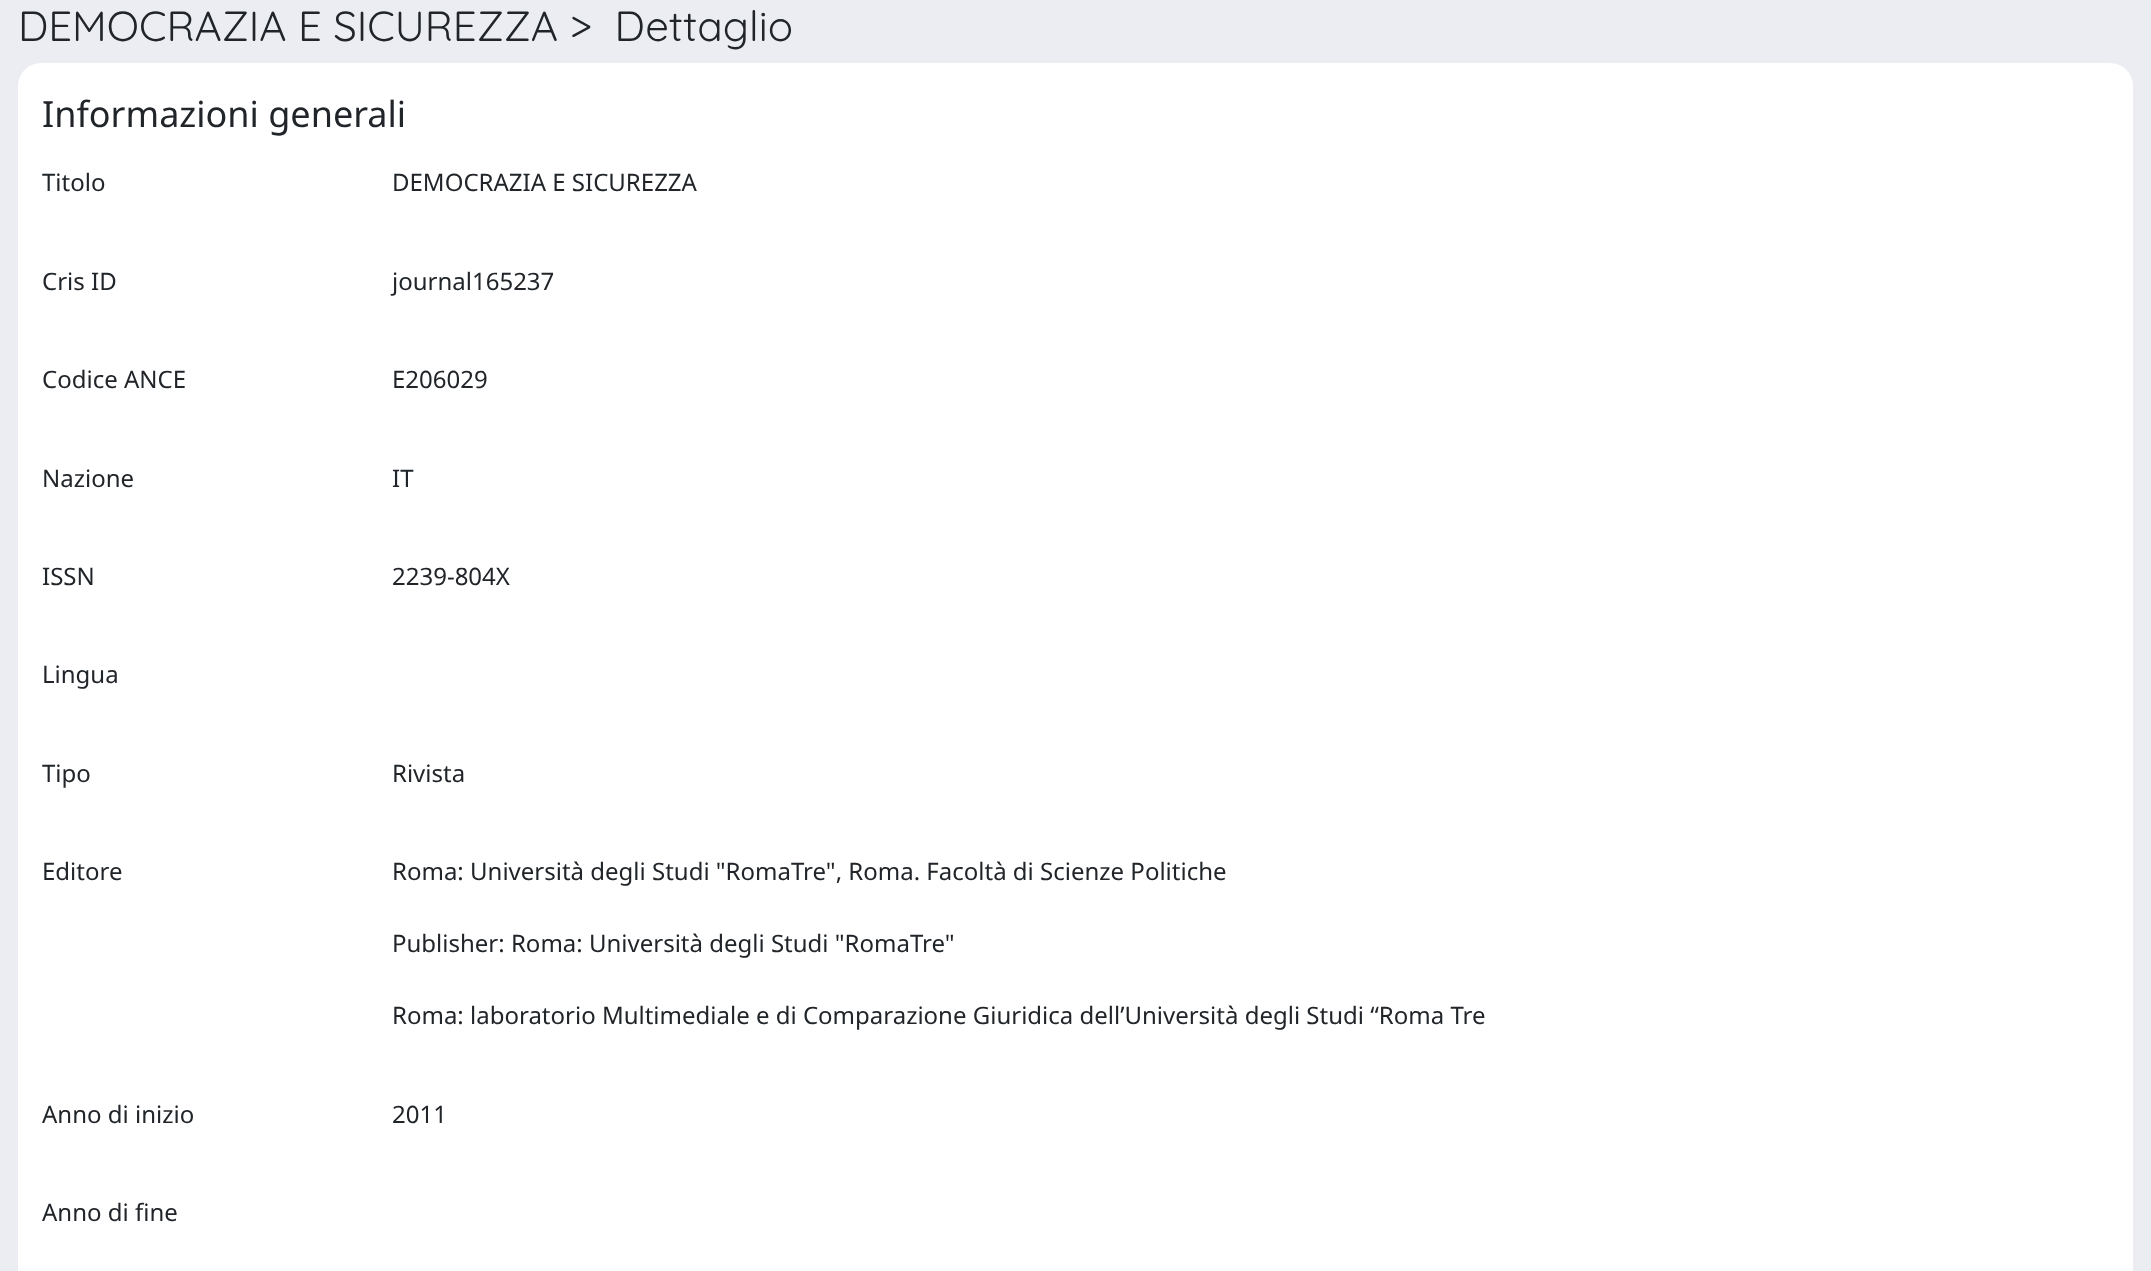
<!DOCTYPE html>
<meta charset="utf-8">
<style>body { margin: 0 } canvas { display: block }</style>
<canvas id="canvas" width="2151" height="1271"></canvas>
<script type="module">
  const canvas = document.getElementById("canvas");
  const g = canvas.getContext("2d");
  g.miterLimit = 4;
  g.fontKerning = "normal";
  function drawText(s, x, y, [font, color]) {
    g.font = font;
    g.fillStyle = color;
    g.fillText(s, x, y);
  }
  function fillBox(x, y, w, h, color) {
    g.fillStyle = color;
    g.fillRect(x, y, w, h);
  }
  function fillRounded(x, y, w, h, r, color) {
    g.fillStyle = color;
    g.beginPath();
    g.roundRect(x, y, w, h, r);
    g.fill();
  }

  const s1 = ["300 42px Quicksand", "#212529"];
  const s2 = ["36px Noto Sans", "#212529"];
  const s3 = ["24px Noto Sans", "#212529"];

  fillBox(0, 0, 2151, 1271, "#ECEDF2");
  drawText("DEMOCRAZIA E SICUREZZA >  Dettaglio", 18, 41, s1);
  fillRounded(18, 63, 2115, 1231, 23, "#FFFFFF");
  drawText("Informazioni generali", 42, 127, s2);
  drawText("Titolo", 42, 191, s3);
  drawText("DEMOCRAZIA E SICUREZZA", 392, 191, s3);
  drawText("Cris ID", 42, 290, s3);
  drawText("journal165237", 392, 290, s3);
  drawText("Codice ANCE", 42, 388, s3);
  drawText("E206029", 392, 388, s3);
  drawText("Nazione", 42, 487, s3);
  drawText("IT", 392, 487, s3);
  drawText("ISSN", 42, 585, s3);
  drawText("2239-804X", 392, 585, s3);
  drawText("Lingua", 42, 683, s3);
  drawText("Tipo", 42, 782, s3);
  drawText("Rivista", 392, 782, s3);
  drawText("Editore", 42, 880, s3);
  drawText("Roma: Università degli Studi \"RomaTre\", Roma. Facoltà di Scienze Politiche", 392, 880, s3);
  drawText("Publisher: Roma: Università degli Studi \"RomaTre\"", 392, 952, s3);
  drawText("Roma: laboratorio Multimediale e di Comparazione Giuridica dell’Università degli Studi “Roma Tre", 392, 1024, s3);
  drawText("Anno di inizio", 42, 1123, s3);
  drawText("2011", 392, 1123, s3);
  drawText("Anno di fine", 42, 1221, s3);
</script>
